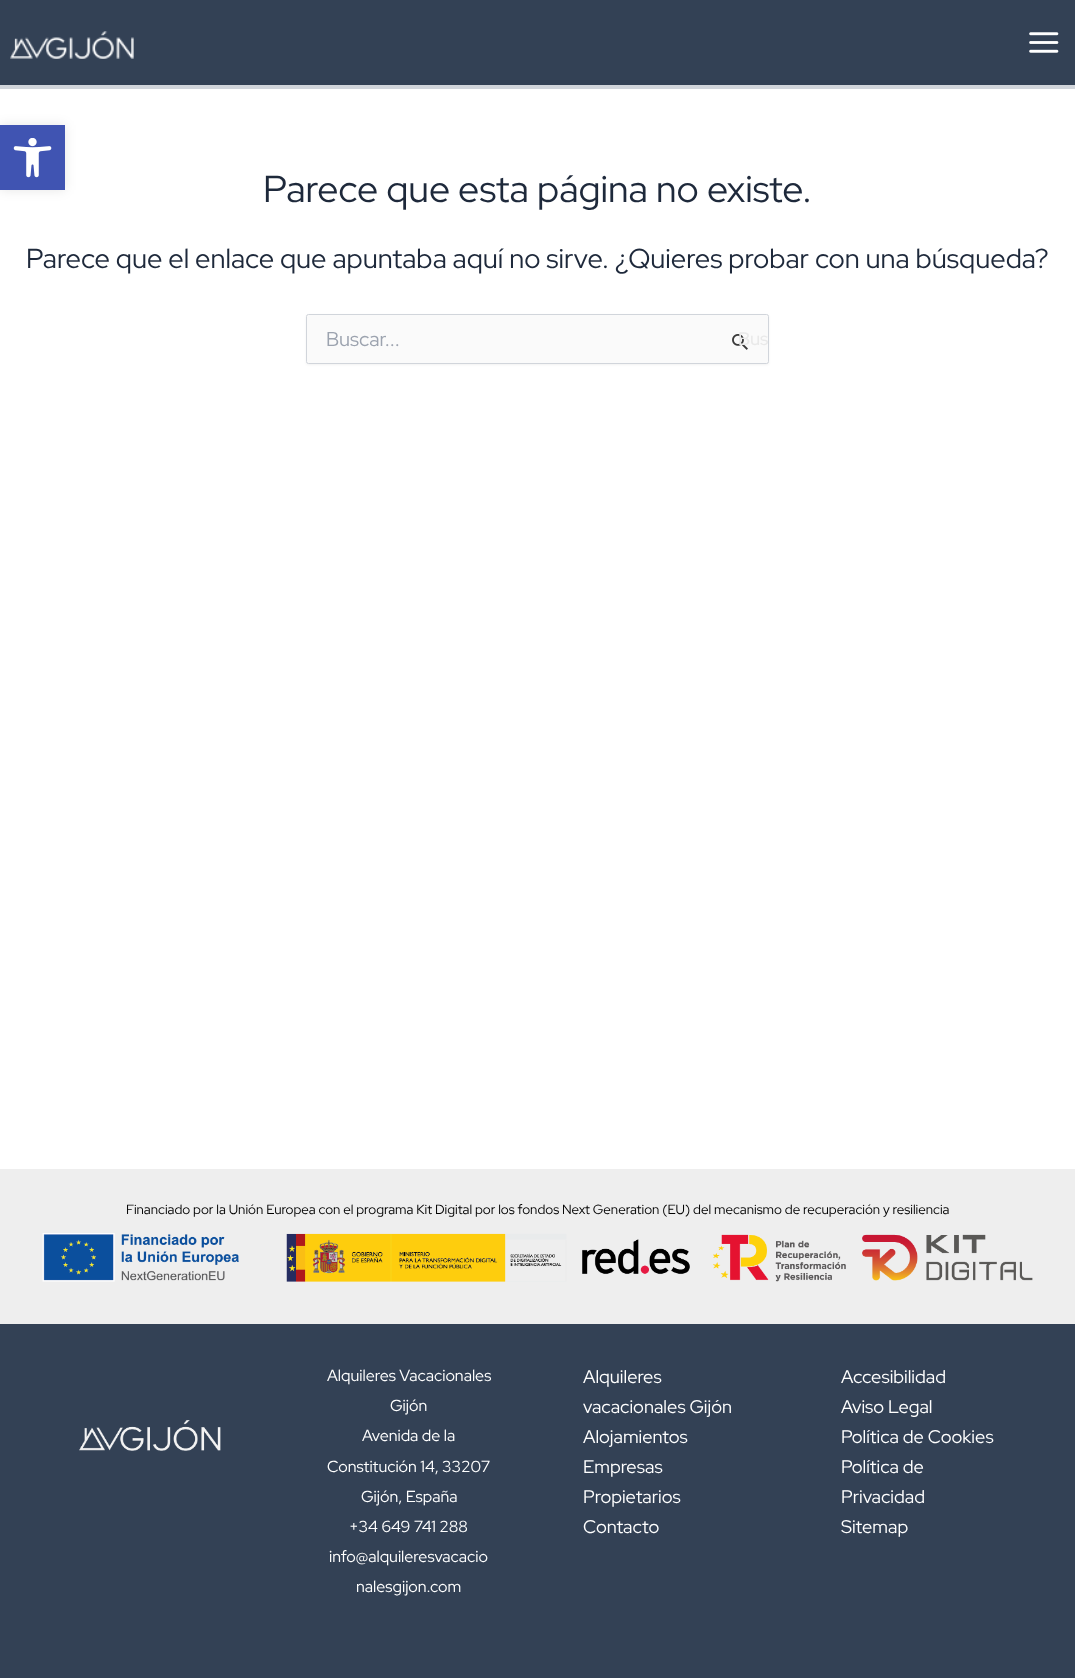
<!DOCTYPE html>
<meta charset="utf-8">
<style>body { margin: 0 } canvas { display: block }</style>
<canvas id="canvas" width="1075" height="1678"></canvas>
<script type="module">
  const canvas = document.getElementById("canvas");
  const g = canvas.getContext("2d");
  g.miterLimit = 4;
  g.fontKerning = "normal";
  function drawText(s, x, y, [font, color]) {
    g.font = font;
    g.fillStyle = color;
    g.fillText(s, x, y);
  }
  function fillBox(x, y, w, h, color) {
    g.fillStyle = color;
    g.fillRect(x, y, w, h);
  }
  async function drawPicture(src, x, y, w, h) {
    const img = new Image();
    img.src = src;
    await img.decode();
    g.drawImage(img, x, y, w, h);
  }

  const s1 = ["37.5px Red Hat Display", "#1E293B"];
  const s2 = ["27.35px Red Hat Display", "#1E293B"];
  const s3 = ["20px Red Hat Display", "#9CA3AF"];
  const s4 = ["500 18.25px Red Hat Display", "#E9E9E9"];
  const s5 = ["13.33px Red Hat Display", "#000000"];
  const s6 = ["16px Red Hat Display", "#FFFFFF"];
  const s7 = ["18.25px Red Hat Display", "#FFFFFF"];

  fillBox(0, 0, 1075, 1678, "#FFFFFF");
  g.fillStyle = "rgba(0, 0, 0, 0.1)";
  g.filter = "blur(6px)";
  g.beginPath();
  g.rect(0, 125, 65, 65);
  g.fill();
  g.filter = "none";
  fillBox(0, 125, 65, 65, "#4054B2");
  await drawPicture("pic1.png", 13, 138, 39, 40);
  fillBox(0, 0, 1075, 85, "#334155");
  fillBox(0, 85, 1075, 4, "#D1D5DB");
  await drawPicture("pic2.png", 10, 31, 124, 28);
  await drawPicture("pic3.png", 1029, 32, 30, 21);
  drawText("Parece que esta página no existe.", 263, 202, s1);
  drawText("Parece que el enlace que apuntaba aquí no sirve. ¿Quieres probar con una búsqueda?", 26, 268, s2);
  g.fillStyle = "rgba(0, 0, 0, 0.05)";
  g.filter = "blur(1px)";
  g.beginPath();
  g.roundRect(306, 315, 463, 50, 2.5);
  g.fill();
  g.filter = "none";
  g.fillStyle = "#FAFAFA";
  g.beginPath();
  g.roundRect(306.5, 314.5, 462, 49, 2);
  g.fill();
  g.strokeStyle = "#D1D5DB";
  g.stroke();
  drawText("Buscar...", 326, 346, s3);
  await drawPicture("pic4.png", 732, 334, 16, 16);
  drawText("Bus", 738, 345, s4);
  fillBox(0, 1169, 1075, 155, "#EEEEEE");
  drawText("Financiado por la Unión Europea con el programa Kit Digital por los fondos Next Generation (EU) del mecanismo de recuperación y resiliencia", 126, 1214, s5);
  await drawPicture("pic5.png", 42, 1233, 991, 49);
  fillBox(0, 1324, 1075, 354, "#334155");
  await drawPicture("pic6.png", 79, 1420, 142, 31);
  drawText("Alquileres Vacacionales", 327, 1381, s6);
  drawText("Gijón", 390, 1411, s6);
  drawText("Avenida de la", 362, 1441, s6);
  drawText("Constitución 14, 33207", 327, 1472, s6);
  drawText("Gijón, España", 361, 1502, s6);
  drawText("+34 649 741 288", 349, 1532, s6);
  drawText("info@alquileresvacacio", 329, 1562, s6);
  drawText("nalesgijon.com", 356, 1592, s6);
  drawText("Alquileres", 583, 1383, s7);
  drawText("vacacionales Gijón", 583, 1413, s7);
  drawText("Alojamientos", 583, 1443, s7);
  drawText("Empresas", 583, 1473, s7);
  drawText("Propietarios", 583, 1503, s7);
  drawText("Contacto", 583, 1533, s7);
  drawText("Accesibilidad", 841, 1383, s7);
  drawText("Aviso Legal", 841, 1413, s7);
  drawText("Política de Cookies", 841, 1443, s7);
  drawText("Política de", 841, 1473, s7);
  drawText("Privacidad", 841, 1503, s7);
  drawText("Sitemap", 841, 1533, s7);
</script>
